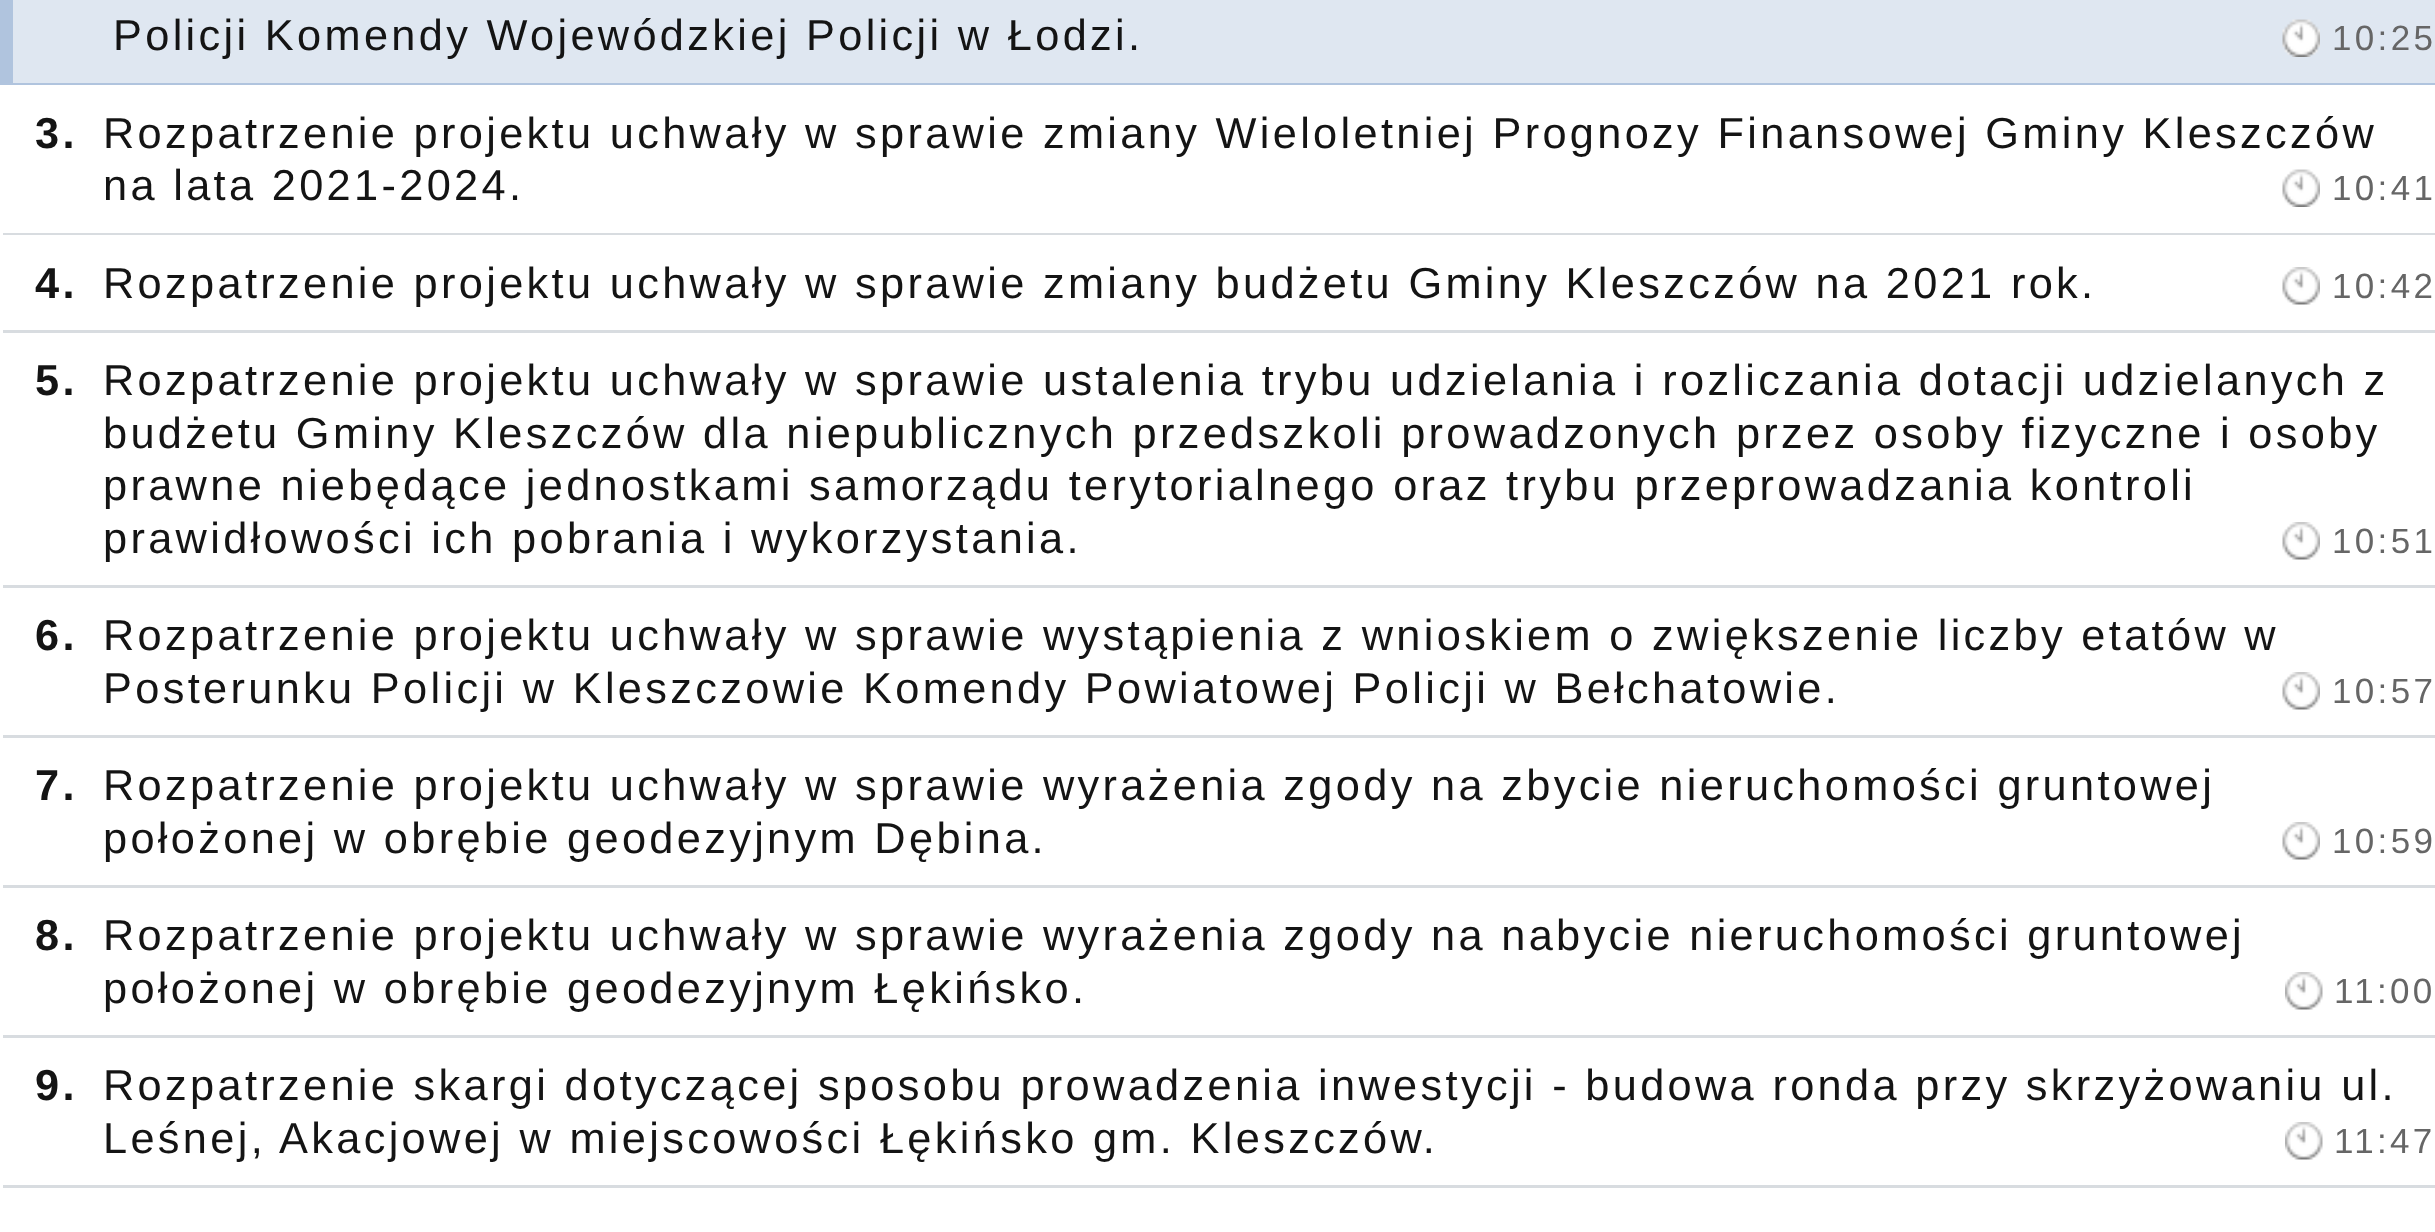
<!DOCTYPE html>
<meta charset="utf-8">
<style>body { margin: 0 } canvas { display: block }</style>
<canvas id="canvas" width="2435" height="1232"></canvas>
<script type="module">
  const canvas = document.getElementById("canvas");
  const g = canvas.getContext("2d");
  g.miterLimit = 4;
  g.fontKerning = "normal";
  function drawText(s, x, y, [font, color]) {
    g.font = font;
    g.fillStyle = color;
    g.fillText(s, x, y);
  }
  function fillBox(x, y, w, h, color) {
    g.fillStyle = color;
    g.fillRect(x, y, w, h);
  }
  async function drawPicture(src, x, y, w, h) {
    const img = new Image();
    img.src = src;
    await img.decode();
    g.drawImage(img, x, y, w, h);
  }

  const s1 = ["43.33px Liberation Sans", "#141414"];
  const s2 = ["35px Liberation Sans", "#666666"];
  const s3 = ["bold 43.33px Liberation Sans", "#141414"];

  fillBox(0, 0, 2435, 1232, "#DFE7F1");
  fillBox(13, 83, 2422, 2, "#B0C4DE");
  fillBox(0, 0, 13, 85, "#B0C4DE");
  g.letterSpacing = "3.33px";
  drawText("Policji Komendy Wojewódzkiej Policji w Łodzi.", 113, 50, s1);
  await drawPicture("pic1.png", 2282, 19, 38, 38);
  drawText("10:25", 2332, 50, s2);
  fillBox(3, 85, 2432, 148, "#FFFFFF");
  fillBox(0, 233, 2435, 2, "#D8DCE0");
  fillBox(0, 85, 3, 150, "#FFFFFF");
  drawText("3.", 35, 148, s3);
  drawText("Rozpatrzenie projektu uchwały w sprawie zmiany Wieloletniej Prognozy Finansowej Gminy Kleszczów", 103, 148, s1);
  drawText("na lata 2021-2024.", 103, 200, s1);
  await drawPicture("pic2.png", 2282, 169, 38, 38);
  drawText("10:41", 2332, 200, s2);
  fillBox(3, 235, 2432, 95, "#FFFFFF");
  fillBox(0, 330, 2435, 3, "#D8DCE0");
  fillBox(0, 235, 3, 98, "#FFFFFF");
  drawText("4.", 35, 298, s3);
  drawText("Rozpatrzenie projektu uchwały w sprawie zmiany budżetu Gminy Kleszczów na 2021 rok.", 103, 298, s1);
  await drawPicture("pic3.png", 2282, 267, 38, 38);
  drawText("10:42", 2332, 298, s2);
  fillBox(3, 333, 2432, 252, "#FFFFFF");
  fillBox(0, 585, 2435, 3, "#D8DCE0");
  fillBox(0, 333, 3, 255, "#FFFFFF");
  drawText("5.", 35, 395, s3);
  drawText("Rozpatrzenie projektu uchwały w sprawie ustalenia trybu udzielania i rozliczania dotacji udzielanych z", 103, 395, s1);
  drawText("budżetu Gminy Kleszczów dla niepublicznych przedszkoli prowadzonych przez osoby fizyczne i osoby", 103, 448, s1);
  drawText("prawne niebędące jednostkami samorządu terytorialnego oraz trybu przeprowadzania kontroli", 103, 500, s1);
  drawText("prawidłowości ich pobrania i wykorzystania.", 103, 553, s1);
  await drawPicture("pic3.png", 2282, 522, 38, 38);
  drawText("10:51", 2332, 553, s2);
  fillBox(3, 588, 2432, 147, "#FFFFFF");
  fillBox(0, 735, 2435, 3, "#D8DCE0");
  fillBox(0, 588, 3, 150, "#FFFFFF");
  drawText("6.", 35, 650, s3);
  drawText("Rozpatrzenie projektu uchwały w sprawie wystąpienia z wnioskiem o zwiększenie liczby etatów w", 103, 650, s1);
  drawText("Posterunku Policji w Kleszczowie Komendy Powiatowej Policji w Bełchatowie.", 103, 703, s1);
  await drawPicture("pic3.png", 2282, 672, 38, 38);
  drawText("10:57", 2332, 703, s2);
  fillBox(3, 738, 2432, 147, "#FFFFFF");
  fillBox(0, 885, 2435, 3, "#D8DCE0");
  fillBox(0, 738, 3, 150, "#FFFFFF");
  drawText("7.", 35, 800, s3);
  drawText("Rozpatrzenie projektu uchwały w sprawie wyrażenia zgody na zbycie nieruchomości gruntowej", 103, 800, s1);
  drawText("położonej w obrębie geodezyjnym Dębina.", 103, 853, s1);
  await drawPicture("pic3.png", 2282, 822, 38, 38);
  drawText("10:59", 2332, 853, s2);
  fillBox(3, 888, 2432, 147, "#FFFFFF");
  fillBox(0, 1035, 2435, 3, "#D8DCE0");
  fillBox(0, 888, 3, 150, "#FFFFFF");
  drawText("8.", 35, 950, s3);
  drawText("Rozpatrzenie projektu uchwały w sprawie wyrażenia zgody na nabycie nieruchomości gruntowej", 103, 950, s1);
  drawText("położonej w obrębie geodezyjnym Łękińsko.", 103, 1003, s1);
  await drawPicture("pic4.png", 2285, 972, 38, 38);
  drawText("11:00", 2334, 1003, s2);
  fillBox(3, 1038, 2432, 147, "#FFFFFF");
  fillBox(0, 1185, 2435, 3, "#D8DCE0");
  fillBox(0, 1038, 3, 150, "#FFFFFF");
  drawText("9.", 35, 1100, s3);
  drawText("Rozpatrzenie skargi dotyczącej sposobu prowadzenia inwestycji - budowa ronda przy skrzyżowaniu ul.", 103, 1100, s1);
  drawText("Leśnej, Akacjowej w miejscowości Łękińsko gm. Kleszczów.", 103, 1153, s1);
  await drawPicture("pic4.png", 2285, 1122, 38, 38);
  drawText("11:47", 2334, 1153, s2);
  fillBox(0, 1188, 2435, 44, "#FFFFFF");
</script>
